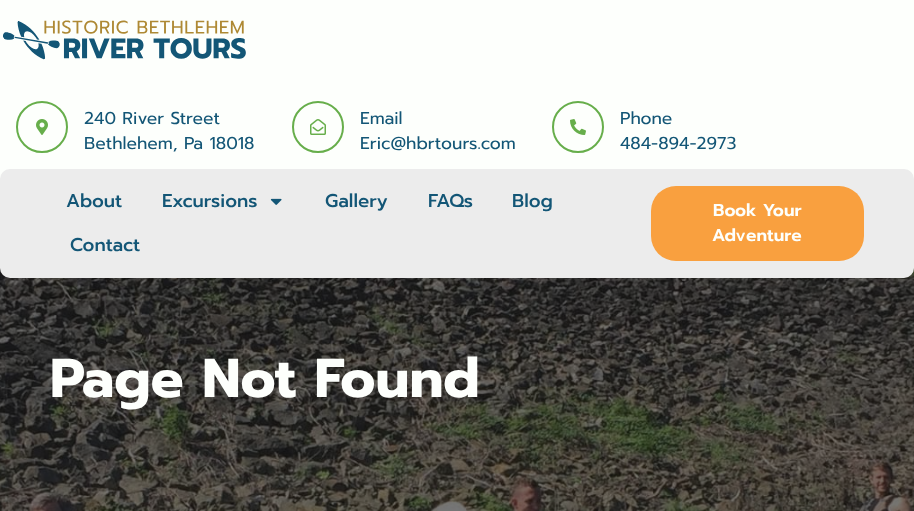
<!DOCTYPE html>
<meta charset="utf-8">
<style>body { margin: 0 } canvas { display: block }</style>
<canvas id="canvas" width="914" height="511"></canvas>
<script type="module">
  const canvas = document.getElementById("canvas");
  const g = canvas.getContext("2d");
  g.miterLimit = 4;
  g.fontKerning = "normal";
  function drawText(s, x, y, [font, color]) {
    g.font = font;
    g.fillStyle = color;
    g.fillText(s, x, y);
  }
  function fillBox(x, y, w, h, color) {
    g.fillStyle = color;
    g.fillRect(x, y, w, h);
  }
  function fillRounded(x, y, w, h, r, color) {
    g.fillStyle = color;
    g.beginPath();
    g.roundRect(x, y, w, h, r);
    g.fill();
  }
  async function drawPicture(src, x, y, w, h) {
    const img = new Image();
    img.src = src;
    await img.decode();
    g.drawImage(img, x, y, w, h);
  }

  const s1 = ["17.25px Prompt", "#135676"];
  const s2 = ["500 18.5px Prompt", "#135676"];
  const s3 = ["600 17.25px Prompt", "#FDFFFC"];
  const s4 = ["bold 54.75px Prompt", "#FDFFFC"];

  fillBox(0, 0, 914, 511, "#FDFFFC");
  await drawPicture("pic1.png", 3, 20, 243, 40);
  g.beginPath();
  g.arc(42, 127, 25, 0, Math.PI * 2);
  g.strokeStyle = "#67AE4B";
  g.lineWidth = 2;
  g.stroke();
  await drawPicture("pic2.png", 36, 119, 12, 16);
  drawText("240 River Street", 84, 124, s1);
  drawText("Bethlehem, Pa 18018", 84, 149, s1);
  g.beginPath();
  g.arc(318, 127, 25, 0, Math.PI * 2);
  g.stroke();
  await drawPicture("pic3.png", 310, 119, 16, 16);
  drawText("Email", 360, 124, s1);
  drawText("Eric@hbrtours.com", 360, 149, s1);
  g.beginPath();
  g.arc(578, 127, 25, 0, Math.PI * 2);
  g.stroke();
  await drawPicture("pic4.png", 570, 119, 16, 16);
  drawText("Phone", 620, 124, s1);
  drawText("484-894-2973", 620, 149, s1);
  await drawPicture("pic6.png", 0, 268, 914, 243);
  fillRounded(0, 169, 914, 109, 10, "#ECECEC");
  drawText("About", 66, 207, s2);
  drawText("Excursions", 162, 207, s2);
  await drawPicture("pic5.png", 270, 198, 12, 7);
  drawText("Gallery", 325, 207, s2);
  drawText("FAQs", 428, 207, s2);
  drawText("Blog", 512, 207, s2);
  drawText("Contact", 70, 251, s2);
  fillRounded(651, 186, 213, 75, 25, "#F9A03F");
  drawText("Book Your", 713, 216, s3);
  drawText("Adventure", 712, 241, s3);
  drawText("Page Not Found", 50, 397, s4);
</script>
